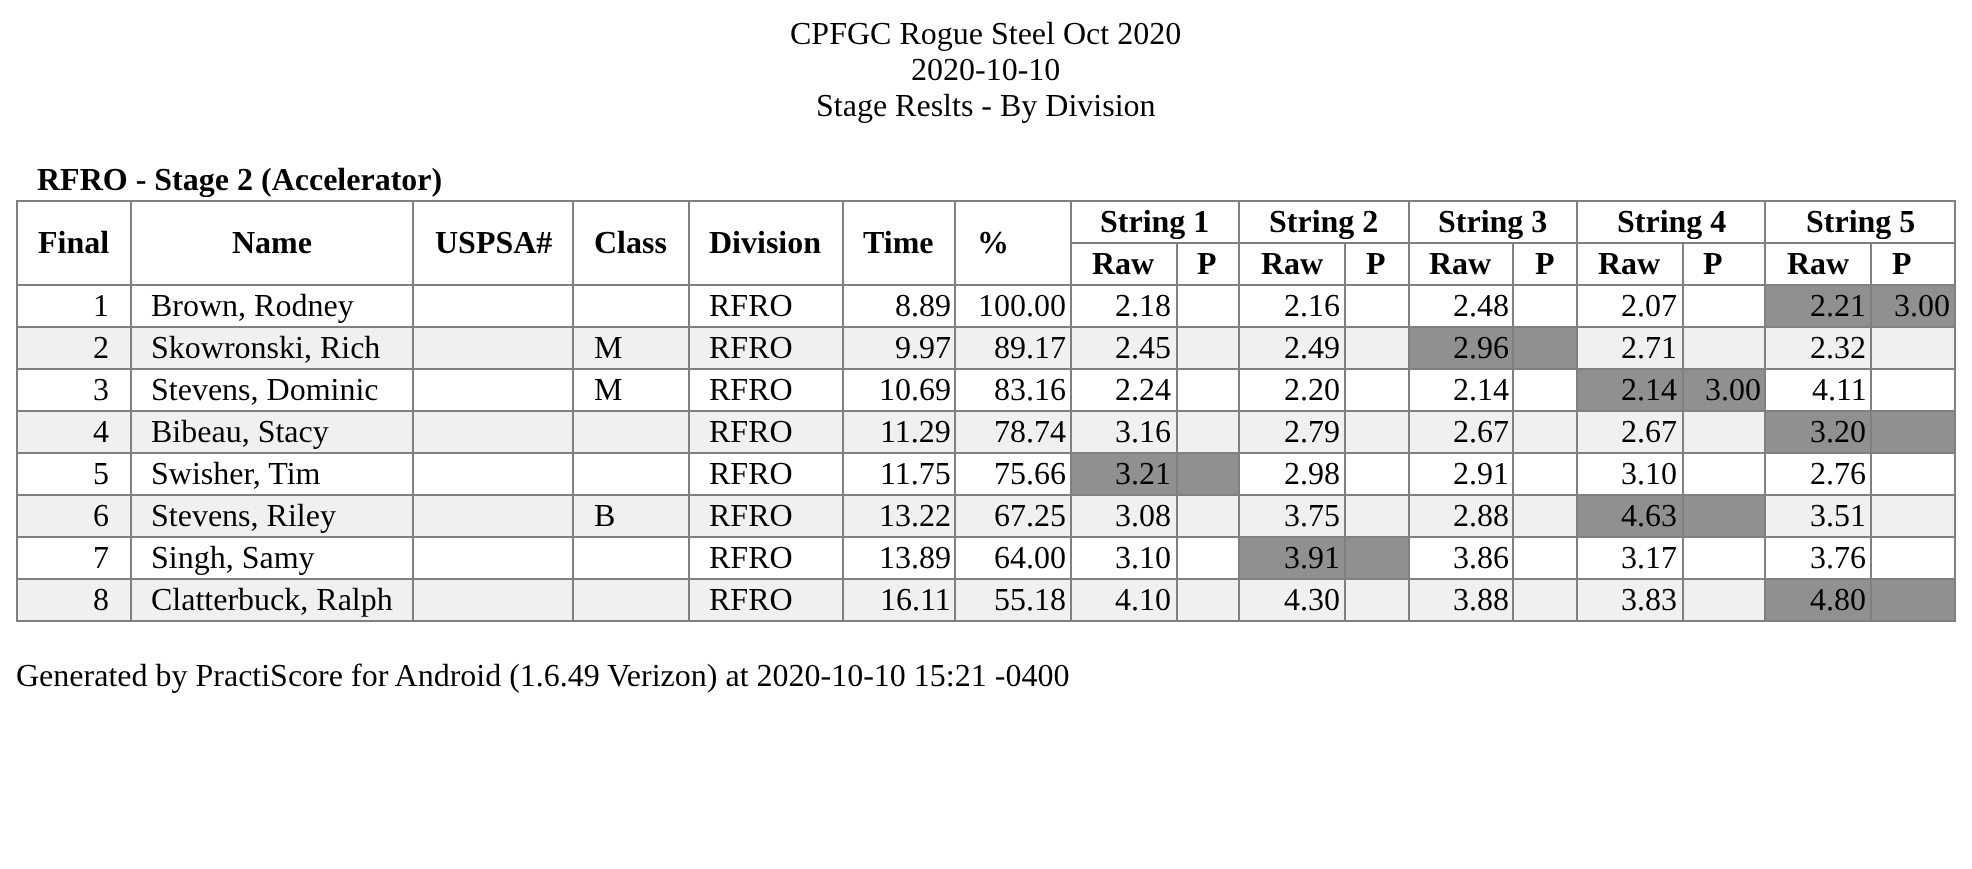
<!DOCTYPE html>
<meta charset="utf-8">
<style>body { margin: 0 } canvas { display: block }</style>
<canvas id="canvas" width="1972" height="869"></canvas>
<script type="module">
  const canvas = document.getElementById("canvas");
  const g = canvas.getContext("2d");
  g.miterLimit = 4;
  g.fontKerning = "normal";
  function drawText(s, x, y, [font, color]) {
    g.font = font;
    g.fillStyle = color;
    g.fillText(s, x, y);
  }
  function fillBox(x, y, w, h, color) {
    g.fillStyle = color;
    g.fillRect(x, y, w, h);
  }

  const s1 = ["32px Liberation Serif", "#000000"];
  const s2 = ["bold 32px Liberation Serif", "#000000"];

  fillBox(0, 0, 1972, 869, "#FFFFFF");
  drawText("CPFGC Rogue Steel Oct 2020", 790, 44, s1);
  drawText("2020-10-10", 911, 80, s1);
  drawText("Stage Reslts - By Division", 816, 116, s1);
  drawText("RFRO - Stage 2 (Accelerator)", 37, 190, s2);
  fillBox(1764, 200, 192, 2, "#808080");
  fillBox(1870, 242, 86, 2, "#808080");
  fillBox(1870, 284, 86, 2, "#808080");
  fillBox(1870, 326, 86, 2, "#808080");
  fillBox(18, 328, 1936, 40, "#F0F0F0");
  fillBox(1870, 368, 86, 2, "#808080");
  fillBox(1870, 410, 86, 2, "#808080");
  fillBox(1870, 452, 86, 2, "#808080");
  fillBox(1870, 494, 86, 2, "#808080");
  fillBox(18, 496, 1936, 40, "#F0F0F0");
  fillBox(1870, 536, 86, 2, "#808080");
  fillBox(1870, 578, 86, 2, "#808080");
  fillBox(1954, 578, 2, 44, "#808080");
  fillBox(1870, 620, 86, 2, "#808080");
  fillBox(1870, 578, 2, 44, "#808080");
  fillBox(1764, 578, 108, 2, "#808080");
  fillBox(1870, 536, 2, 44, "#808080");
  fillBox(1764, 536, 108, 2, "#808080");
  fillBox(1870, 494, 2, 44, "#808080");
  fillBox(1764, 494, 108, 2, "#808080");
  fillBox(1870, 452, 2, 44, "#808080");
  fillBox(1764, 452, 108, 2, "#808080");
  fillBox(1870, 410, 2, 44, "#808080");
  fillBox(1764, 410, 108, 2, "#808080");
  fillBox(1870, 368, 2, 44, "#808080");
  fillBox(1764, 368, 108, 2, "#808080");
  fillBox(1870, 326, 2, 44, "#808080");
  fillBox(1764, 326, 108, 2, "#808080");
  fillBox(1870, 284, 2, 44, "#808080");
  fillBox(1764, 284, 108, 2, "#808080");
  fillBox(1870, 242, 2, 44, "#808080");
  fillBox(1764, 242, 108, 2, "#808080");
  fillBox(1764, 620, 108, 2, "#808080");
  fillBox(1764, 578, 2, 44, "#808080");
  fillBox(1682, 578, 84, 2, "#808080");
  fillBox(1764, 536, 2, 44, "#808080");
  fillBox(1682, 536, 84, 2, "#808080");
  fillBox(1764, 494, 2, 44, "#808080");
  fillBox(1682, 494, 84, 2, "#808080");
  fillBox(1764, 452, 2, 44, "#808080");
  fillBox(1682, 452, 84, 2, "#808080");
  fillBox(1764, 410, 2, 44, "#808080");
  fillBox(1682, 410, 84, 2, "#808080");
  fillBox(1764, 368, 2, 44, "#808080");
  fillBox(1682, 368, 84, 2, "#808080");
  fillBox(1764, 326, 2, 44, "#808080");
  fillBox(1682, 326, 84, 2, "#808080");
  fillBox(1764, 284, 2, 44, "#808080");
  fillBox(1682, 284, 84, 2, "#808080");
  fillBox(1764, 242, 2, 44, "#808080");
  fillBox(1682, 242, 84, 2, "#808080");
  fillBox(1764, 200, 2, 44, "#808080");
  fillBox(1576, 200, 190, 2, "#808080");
  fillBox(18, 412, 1746, 40, "#F0F0F0");
  fillBox(18, 580, 1746, 40, "#F0F0F0");
  fillBox(1682, 620, 84, 2, "#808080");
  fillBox(1682, 578, 2, 44, "#808080");
  fillBox(1576, 578, 108, 2, "#808080");
  fillBox(1682, 536, 2, 44, "#808080");
  fillBox(1576, 536, 108, 2, "#808080");
  fillBox(1682, 494, 2, 44, "#808080");
  fillBox(1576, 494, 108, 2, "#808080");
  fillBox(1682, 452, 2, 44, "#808080");
  fillBox(1576, 452, 108, 2, "#808080");
  fillBox(1682, 410, 2, 44, "#808080");
  fillBox(1576, 410, 108, 2, "#808080");
  fillBox(1682, 368, 2, 44, "#808080");
  fillBox(1576, 368, 108, 2, "#808080");
  fillBox(1682, 326, 2, 44, "#808080");
  fillBox(1576, 326, 108, 2, "#808080");
  fillBox(1682, 284, 2, 44, "#808080");
  fillBox(1576, 284, 108, 2, "#808080");
  fillBox(1682, 242, 2, 44, "#808080");
  fillBox(1576, 242, 108, 2, "#808080");
  fillBox(1576, 620, 108, 2, "#808080");
  fillBox(1576, 578, 2, 44, "#808080");
  fillBox(1512, 578, 66, 2, "#808080");
  fillBox(1576, 536, 2, 44, "#808080");
  fillBox(1512, 536, 66, 2, "#808080");
  fillBox(1576, 494, 2, 44, "#808080");
  fillBox(1512, 494, 66, 2, "#808080");
  fillBox(1576, 452, 2, 44, "#808080");
  fillBox(1512, 452, 66, 2, "#808080");
  fillBox(1576, 410, 2, 44, "#808080");
  fillBox(1512, 410, 66, 2, "#808080");
  fillBox(1576, 368, 2, 44, "#808080");
  fillBox(1512, 368, 66, 2, "#808080");
  fillBox(1576, 326, 2, 44, "#808080");
  fillBox(1512, 326, 66, 2, "#808080");
  fillBox(1576, 284, 2, 44, "#808080");
  fillBox(1512, 284, 66, 2, "#808080");
  fillBox(1576, 242, 2, 44, "#808080");
  fillBox(1512, 242, 66, 2, "#808080");
  fillBox(1576, 200, 2, 44, "#808080");
  fillBox(1408, 200, 170, 2, "#808080");
  fillBox(1512, 620, 66, 2, "#808080");
  fillBox(1512, 578, 2, 44, "#808080");
  fillBox(1408, 578, 106, 2, "#808080");
  fillBox(1512, 536, 2, 44, "#808080");
  fillBox(1408, 536, 106, 2, "#808080");
  fillBox(1512, 494, 2, 44, "#808080");
  fillBox(1408, 494, 106, 2, "#808080");
  fillBox(1512, 452, 2, 44, "#808080");
  fillBox(1408, 452, 106, 2, "#808080");
  fillBox(1512, 410, 2, 44, "#808080");
  fillBox(1408, 410, 106, 2, "#808080");
  fillBox(1512, 368, 2, 44, "#808080");
  fillBox(1408, 368, 106, 2, "#808080");
  fillBox(1512, 326, 2, 44, "#808080");
  fillBox(1408, 326, 106, 2, "#808080");
  fillBox(1512, 284, 2, 44, "#808080");
  fillBox(1408, 284, 106, 2, "#808080");
  fillBox(1512, 242, 2, 44, "#808080");
  fillBox(1408, 242, 106, 2, "#808080");
  fillBox(1408, 620, 106, 2, "#808080");
  fillBox(1408, 578, 2, 44, "#808080");
  fillBox(1344, 578, 66, 2, "#808080");
  fillBox(1408, 536, 2, 44, "#808080");
  fillBox(1344, 536, 66, 2, "#808080");
  fillBox(1408, 494, 2, 44, "#808080");
  fillBox(1344, 494, 66, 2, "#808080");
  fillBox(1408, 452, 2, 44, "#808080");
  fillBox(1344, 452, 66, 2, "#808080");
  fillBox(1408, 410, 2, 44, "#808080");
  fillBox(1344, 410, 66, 2, "#808080");
  fillBox(1408, 368, 2, 44, "#808080");
  fillBox(1344, 368, 66, 2, "#808080");
  fillBox(1408, 326, 2, 44, "#808080");
  fillBox(1344, 326, 66, 2, "#808080");
  fillBox(1408, 284, 2, 44, "#808080");
  fillBox(1344, 284, 66, 2, "#808080");
  fillBox(1408, 242, 2, 44, "#808080");
  fillBox(1344, 242, 66, 2, "#808080");
  fillBox(1408, 200, 2, 44, "#808080");
  fillBox(1238, 200, 172, 2, "#808080");
  fillBox(1344, 620, 66, 2, "#808080");
  fillBox(1344, 578, 2, 44, "#808080");
  fillBox(1238, 578, 108, 2, "#808080");
  fillBox(1344, 536, 2, 44, "#808080");
  fillBox(1238, 536, 108, 2, "#808080");
  fillBox(1344, 494, 2, 44, "#808080");
  fillBox(1238, 494, 108, 2, "#808080");
  fillBox(1344, 452, 2, 44, "#808080");
  fillBox(1238, 452, 108, 2, "#808080");
  fillBox(1344, 410, 2, 44, "#808080");
  fillBox(1238, 410, 108, 2, "#808080");
  fillBox(1344, 368, 2, 44, "#808080");
  fillBox(1238, 368, 108, 2, "#808080");
  fillBox(1344, 326, 2, 44, "#808080");
  fillBox(1238, 326, 108, 2, "#808080");
  fillBox(1344, 284, 2, 44, "#808080");
  fillBox(1238, 284, 108, 2, "#808080");
  fillBox(1344, 242, 2, 44, "#808080");
  fillBox(1238, 242, 108, 2, "#808080");
  fillBox(1238, 620, 108, 2, "#808080");
  fillBox(1238, 578, 2, 44, "#808080");
  fillBox(1176, 578, 64, 2, "#808080");
  fillBox(1238, 536, 2, 44, "#808080");
  fillBox(1176, 536, 64, 2, "#808080");
  fillBox(1238, 494, 2, 44, "#808080");
  fillBox(1176, 494, 64, 2, "#808080");
  fillBox(1238, 452, 2, 44, "#808080");
  fillBox(1176, 452, 64, 2, "#808080");
  fillBox(1238, 410, 2, 44, "#808080");
  fillBox(1176, 410, 64, 2, "#808080");
  fillBox(1238, 368, 2, 44, "#808080");
  fillBox(1176, 368, 64, 2, "#808080");
  fillBox(1238, 326, 2, 44, "#808080");
  fillBox(1176, 326, 64, 2, "#808080");
  fillBox(1238, 284, 2, 44, "#808080");
  fillBox(1176, 284, 64, 2, "#808080");
  fillBox(1238, 242, 2, 44, "#808080");
  fillBox(1176, 242, 64, 2, "#808080");
  fillBox(1238, 200, 2, 44, "#808080");
  fillBox(1070, 200, 170, 2, "#808080");
  fillBox(1176, 620, 64, 2, "#808080");
  fillBox(1176, 578, 2, 44, "#808080");
  fillBox(1070, 578, 108, 2, "#808080");
  fillBox(1176, 536, 2, 44, "#808080");
  fillBox(1070, 536, 108, 2, "#808080");
  fillBox(1176, 494, 2, 44, "#808080");
  fillBox(1070, 494, 108, 2, "#808080");
  fillBox(1176, 452, 2, 44, "#808080");
  fillBox(1070, 452, 108, 2, "#808080");
  fillBox(1176, 410, 2, 44, "#808080");
  fillBox(1070, 410, 108, 2, "#808080");
  fillBox(1176, 368, 2, 44, "#808080");
  fillBox(1070, 368, 108, 2, "#808080");
  fillBox(1176, 326, 2, 44, "#808080");
  fillBox(1070, 326, 108, 2, "#808080");
  fillBox(1176, 284, 2, 44, "#808080");
  fillBox(1070, 284, 108, 2, "#808080");
  fillBox(1176, 242, 2, 44, "#808080");
  fillBox(1070, 242, 108, 2, "#808080");
  fillBox(1070, 620, 108, 2, "#808080");
  fillBox(1070, 578, 2, 44, "#808080");
  fillBox(954, 578, 118, 2, "#808080");
  fillBox(1070, 536, 2, 44, "#808080");
  fillBox(954, 536, 118, 2, "#808080");
  fillBox(1070, 494, 2, 44, "#808080");
  fillBox(954, 494, 118, 2, "#808080");
  fillBox(1070, 452, 2, 44, "#808080");
  fillBox(954, 452, 118, 2, "#808080");
  fillBox(1070, 410, 2, 44, "#808080");
  fillBox(954, 410, 118, 2, "#808080");
  fillBox(1070, 368, 2, 44, "#808080");
  fillBox(954, 368, 118, 2, "#808080");
  fillBox(1070, 326, 2, 44, "#808080");
  fillBox(954, 326, 118, 2, "#808080");
  fillBox(1070, 284, 2, 44, "#808080");
  fillBox(954, 284, 118, 2, "#808080");
  fillBox(1070, 242, 2, 44, "#808080");
  fillBox(1070, 200, 2, 44, "#808080");
  fillBox(954, 200, 118, 2, "#808080");
  fillBox(954, 620, 118, 2, "#808080");
  fillBox(954, 578, 2, 44, "#808080");
  fillBox(842, 578, 114, 2, "#808080");
  fillBox(954, 536, 2, 44, "#808080");
  fillBox(842, 536, 114, 2, "#808080");
  fillBox(954, 494, 2, 44, "#808080");
  fillBox(842, 494, 114, 2, "#808080");
  fillBox(954, 452, 2, 44, "#808080");
  fillBox(842, 452, 114, 2, "#808080");
  fillBox(954, 410, 2, 44, "#808080");
  fillBox(842, 410, 114, 2, "#808080");
  fillBox(954, 368, 2, 44, "#808080");
  fillBox(842, 368, 114, 2, "#808080");
  fillBox(954, 326, 2, 44, "#808080");
  fillBox(842, 326, 114, 2, "#808080");
  fillBox(954, 284, 2, 44, "#808080");
  fillBox(842, 284, 114, 2, "#808080");
  fillBox(954, 200, 2, 86, "#808080");
  fillBox(842, 200, 114, 2, "#808080");
  fillBox(842, 620, 114, 2, "#808080");
  fillBox(842, 578, 2, 44, "#808080");
  fillBox(688, 578, 156, 2, "#808080");
  fillBox(842, 536, 2, 44, "#808080");
  fillBox(688, 536, 156, 2, "#808080");
  fillBox(842, 494, 2, 44, "#808080");
  fillBox(688, 494, 156, 2, "#808080");
  fillBox(842, 452, 2, 44, "#808080");
  fillBox(688, 452, 156, 2, "#808080");
  fillBox(842, 410, 2, 44, "#808080");
  fillBox(688, 410, 156, 2, "#808080");
  fillBox(842, 368, 2, 44, "#808080");
  fillBox(688, 368, 156, 2, "#808080");
  fillBox(842, 326, 2, 44, "#808080");
  fillBox(688, 326, 156, 2, "#808080");
  fillBox(842, 284, 2, 44, "#808080");
  fillBox(688, 284, 156, 2, "#808080");
  fillBox(842, 200, 2, 86, "#808080");
  fillBox(688, 200, 156, 2, "#808080");
  fillBox(688, 620, 156, 2, "#808080");
  fillBox(688, 578, 2, 44, "#808080");
  fillBox(572, 578, 118, 2, "#808080");
  fillBox(688, 536, 2, 44, "#808080");
  fillBox(572, 536, 118, 2, "#808080");
  fillBox(688, 494, 2, 44, "#808080");
  fillBox(572, 494, 118, 2, "#808080");
  fillBox(688, 452, 2, 44, "#808080");
  fillBox(572, 452, 118, 2, "#808080");
  fillBox(688, 410, 2, 44, "#808080");
  fillBox(572, 410, 118, 2, "#808080");
  fillBox(688, 368, 2, 44, "#808080");
  fillBox(572, 368, 118, 2, "#808080");
  fillBox(688, 326, 2, 44, "#808080");
  fillBox(572, 326, 118, 2, "#808080");
  fillBox(688, 284, 2, 44, "#808080");
  fillBox(572, 284, 118, 2, "#808080");
  fillBox(688, 200, 2, 86, "#808080");
  fillBox(572, 200, 118, 2, "#808080");
  fillBox(572, 620, 118, 2, "#808080");
  fillBox(572, 578, 2, 44, "#808080");
  fillBox(412, 578, 162, 2, "#808080");
  fillBox(572, 536, 2, 44, "#808080");
  fillBox(412, 536, 162, 2, "#808080");
  fillBox(572, 494, 2, 44, "#808080");
  fillBox(412, 494, 162, 2, "#808080");
  fillBox(572, 452, 2, 44, "#808080");
  fillBox(412, 452, 162, 2, "#808080");
  fillBox(572, 410, 2, 44, "#808080");
  fillBox(412, 410, 162, 2, "#808080");
  fillBox(572, 368, 2, 44, "#808080");
  fillBox(412, 368, 162, 2, "#808080");
  fillBox(572, 326, 2, 44, "#808080");
  fillBox(412, 326, 162, 2, "#808080");
  fillBox(572, 284, 2, 44, "#808080");
  fillBox(412, 284, 162, 2, "#808080");
  fillBox(572, 200, 2, 86, "#808080");
  fillBox(412, 200, 162, 2, "#808080");
  fillBox(412, 620, 162, 2, "#808080");
  fillBox(412, 578, 2, 44, "#808080");
  fillBox(130, 578, 284, 2, "#808080");
  fillBox(412, 536, 2, 44, "#808080");
  fillBox(130, 536, 284, 2, "#808080");
  fillBox(412, 494, 2, 44, "#808080");
  fillBox(130, 494, 284, 2, "#808080");
  fillBox(412, 452, 2, 44, "#808080");
  fillBox(130, 452, 284, 2, "#808080");
  fillBox(412, 410, 2, 44, "#808080");
  fillBox(130, 410, 284, 2, "#808080");
  fillBox(412, 368, 2, 44, "#808080");
  fillBox(130, 368, 284, 2, "#808080");
  fillBox(412, 326, 2, 44, "#808080");
  fillBox(130, 326, 284, 2, "#808080");
  fillBox(412, 284, 2, 44, "#808080");
  fillBox(130, 284, 284, 2, "#808080");
  fillBox(412, 200, 2, 86, "#808080");
  fillBox(130, 200, 284, 2, "#808080");
  fillBox(130, 620, 284, 2, "#808080");
  fillBox(130, 578, 2, 44, "#808080");
  fillBox(16, 578, 116, 2, "#808080");
  fillBox(130, 536, 2, 44, "#808080");
  fillBox(16, 536, 116, 2, "#808080");
  fillBox(130, 494, 2, 44, "#808080");
  fillBox(16, 494, 116, 2, "#808080");
  fillBox(130, 452, 2, 44, "#808080");
  fillBox(16, 452, 116, 2, "#808080");
  fillBox(130, 410, 2, 44, "#808080");
  fillBox(16, 410, 116, 2, "#808080");
  fillBox(130, 368, 2, 44, "#808080");
  fillBox(16, 368, 116, 2, "#808080");
  fillBox(130, 326, 2, 44, "#808080");
  fillBox(16, 326, 116, 2, "#808080");
  fillBox(130, 284, 2, 44, "#808080");
  fillBox(16, 284, 116, 2, "#808080");
  fillBox(130, 200, 2, 86, "#808080");
  fillBox(16, 200, 116, 2, "#808080");
  fillBox(16, 620, 116, 2, "#808080");
  fillBox(16, 578, 2, 44, "#808080");
  fillBox(16, 536, 2, 44, "#808080");
  fillBox(16, 494, 2, 44, "#808080");
  fillBox(16, 452, 2, 44, "#808080");
  fillBox(16, 410, 2, 44, "#808080");
  fillBox(16, 368, 2, 44, "#808080");
  fillBox(16, 326, 2, 44, "#808080");
  fillBox(16, 284, 2, 44, "#808080");
  fillBox(16, 200, 2, 86, "#808080");
  drawText("Final", 38, 253, s2);
  drawText("Name", 232, 253, s2);
  drawText("USPSA#", 435, 253, s2);
  drawText("Class", 594, 253, s2);
  drawText("Division", 709, 253, s2);
  drawText("Time", 863, 253, s2);
  drawText("%", 977, 253, s2);
  drawText("String 1", 1100, 232, s2);
  drawText("String 2", 1269, 232, s2);
  drawText("String 3", 1438, 232, s2);
  drawText("String 4", 1617, 232, s2);
  fillBox(1954, 536, 2, 44, "#808080");
  fillBox(1954, 494, 2, 44, "#808080");
  fillBox(1954, 452, 2, 44, "#808080");
  fillBox(1954, 410, 2, 44, "#808080");
  fillBox(1954, 368, 2, 44, "#808080");
  fillBox(1954, 326, 2, 44, "#808080");
  fillBox(1954, 284, 2, 44, "#808080");
  fillBox(1954, 242, 2, 44, "#808080");
  fillBox(1954, 200, 2, 44, "#808080");
  drawText("String 5", 1806, 232, s2);
  drawText("Raw", 1092, 274, s2);
  drawText("P", 1197, 274, s2);
  drawText("Raw", 1261, 274, s2);
  drawText("P", 1366, 274, s2);
  drawText("Raw", 1429, 274, s2);
  drawText("P", 1535, 274, s2);
  drawText("Raw", 1598, 274, s2);
  drawText("P", 1703, 274, s2);
  drawText("Raw", 1787, 274, s2);
  drawText("P", 1892, 274, s2);
  drawText("1", 93, 316, s1);
  drawText("Brown, Rodney", 151, 316, s1);
  drawText("RFRO", 709, 316, s1);
  drawText("8.89", 895, 316, s1);
  drawText("100.00", 978, 316, s1);
  drawText("2.18", 1115, 316, s1);
  drawText("2.16", 1284, 316, s1);
  drawText("2.48", 1453, 316, s1);
  drawText("2.07", 1621, 316, s1);
  fillBox(1766, 286, 104, 40, "#909090");
  drawText("2.21", 1810, 316, s1);
  fillBox(1872, 286, 82, 40, "#909090");
  drawText("3.00", 1894, 316, s1);
  drawText("2", 93, 358, s1);
  drawText("Skowronski, Rich", 151, 358, s1);
  drawText("M", 594, 358, s1);
  drawText("RFRO", 709, 358, s1);
  drawText("9.97", 895, 358, s1);
  drawText("89.17", 994, 358, s1);
  drawText("2.45", 1115, 358, s1);
  drawText("2.49", 1284, 358, s1);
  fillBox(1410, 328, 102, 40, "#909090");
  drawText("2.96", 1453, 358, s1);
  fillBox(1514, 328, 62, 40, "#909090");
  drawText("2.71", 1621, 358, s1);
  drawText("2.32", 1810, 358, s1);
  drawText("3", 93, 400, s1);
  drawText("Stevens, Dominic", 151, 400, s1);
  drawText("M", 594, 400, s1);
  drawText("RFRO", 709, 400, s1);
  drawText("10.69", 879, 400, s1);
  drawText("83.16", 994, 400, s1);
  drawText("2.24", 1115, 400, s1);
  drawText("2.20", 1284, 400, s1);
  drawText("2.14", 1453, 400, s1);
  fillBox(1578, 370, 104, 40, "#909090");
  drawText("2.14", 1621, 400, s1);
  fillBox(1684, 370, 80, 40, "#909090");
  drawText("3.00", 1705, 400, s1);
  drawText("4.11", 1812, 400, s1);
  drawText("4", 93, 442, s1);
  drawText("Bibeau, Stacy", 151, 442, s1);
  drawText("RFRO", 709, 442, s1);
  drawText("11.29", 880, 442, s1);
  drawText("78.74", 994, 442, s1);
  drawText("3.16", 1115, 442, s1);
  drawText("2.79", 1284, 442, s1);
  drawText("2.67", 1453, 442, s1);
  drawText("2.67", 1621, 442, s1);
  fillBox(1766, 412, 104, 40, "#909090");
  drawText("3.20", 1810, 442, s1);
  fillBox(1872, 412, 82, 40, "#909090");
  drawText("5", 93, 484, s1);
  drawText("Swisher, Tim", 151, 484, s1);
  drawText("RFRO", 709, 484, s1);
  drawText("11.75", 880, 484, s1);
  drawText("75.66", 994, 484, s1);
  fillBox(1072, 454, 104, 40, "#909090");
  drawText("3.21", 1115, 484, s1);
  fillBox(1178, 454, 60, 40, "#909090");
  drawText("2.98", 1284, 484, s1);
  drawText("2.91", 1453, 484, s1);
  drawText("3.10", 1621, 484, s1);
  drawText("2.76", 1810, 484, s1);
  drawText("6", 93, 526, s1);
  drawText("Stevens, Riley", 151, 526, s1);
  drawText("B", 594, 526, s1);
  drawText("RFRO", 709, 526, s1);
  drawText("13.22", 879, 526, s1);
  drawText("67.25", 994, 526, s1);
  drawText("3.08", 1115, 526, s1);
  drawText("3.75", 1284, 526, s1);
  drawText("2.88", 1453, 526, s1);
  fillBox(1578, 496, 104, 40, "#909090");
  drawText("4.63", 1621, 526, s1);
  fillBox(1684, 496, 80, 40, "#909090");
  drawText("3.51", 1810, 526, s1);
  drawText("7", 93, 568, s1);
  drawText("Singh, Samy", 151, 568, s1);
  drawText("RFRO", 709, 568, s1);
  drawText("13.89", 879, 568, s1);
  drawText("64.00", 994, 568, s1);
  drawText("3.10", 1115, 568, s1);
  fillBox(1240, 538, 104, 40, "#909090");
  drawText("3.91", 1284, 568, s1);
  fillBox(1346, 538, 62, 40, "#909090");
  drawText("3.86", 1453, 568, s1);
  drawText("3.17", 1621, 568, s1);
  drawText("3.76", 1810, 568, s1);
  drawText("8", 93, 610, s1);
  drawText("Clatterbuck, Ralph", 151, 610, s1);
  drawText("RFRO", 709, 610, s1);
  drawText("16.11", 880, 610, s1);
  drawText("55.18", 994, 610, s1);
  drawText("4.10", 1115, 610, s1);
  drawText("4.30", 1284, 610, s1);
  drawText("3.88", 1453, 610, s1);
  drawText("3.83", 1621, 610, s1);
  fillBox(1766, 580, 104, 40, "#909090");
  drawText("4.80", 1810, 610, s1);
  fillBox(1872, 580, 82, 40, "#909090");
  drawText("Generated by PractiScore for Android (1.6.49 Verizon) at 2020-10-10 15:21 -0400", 16, 686, s1);
</script>
